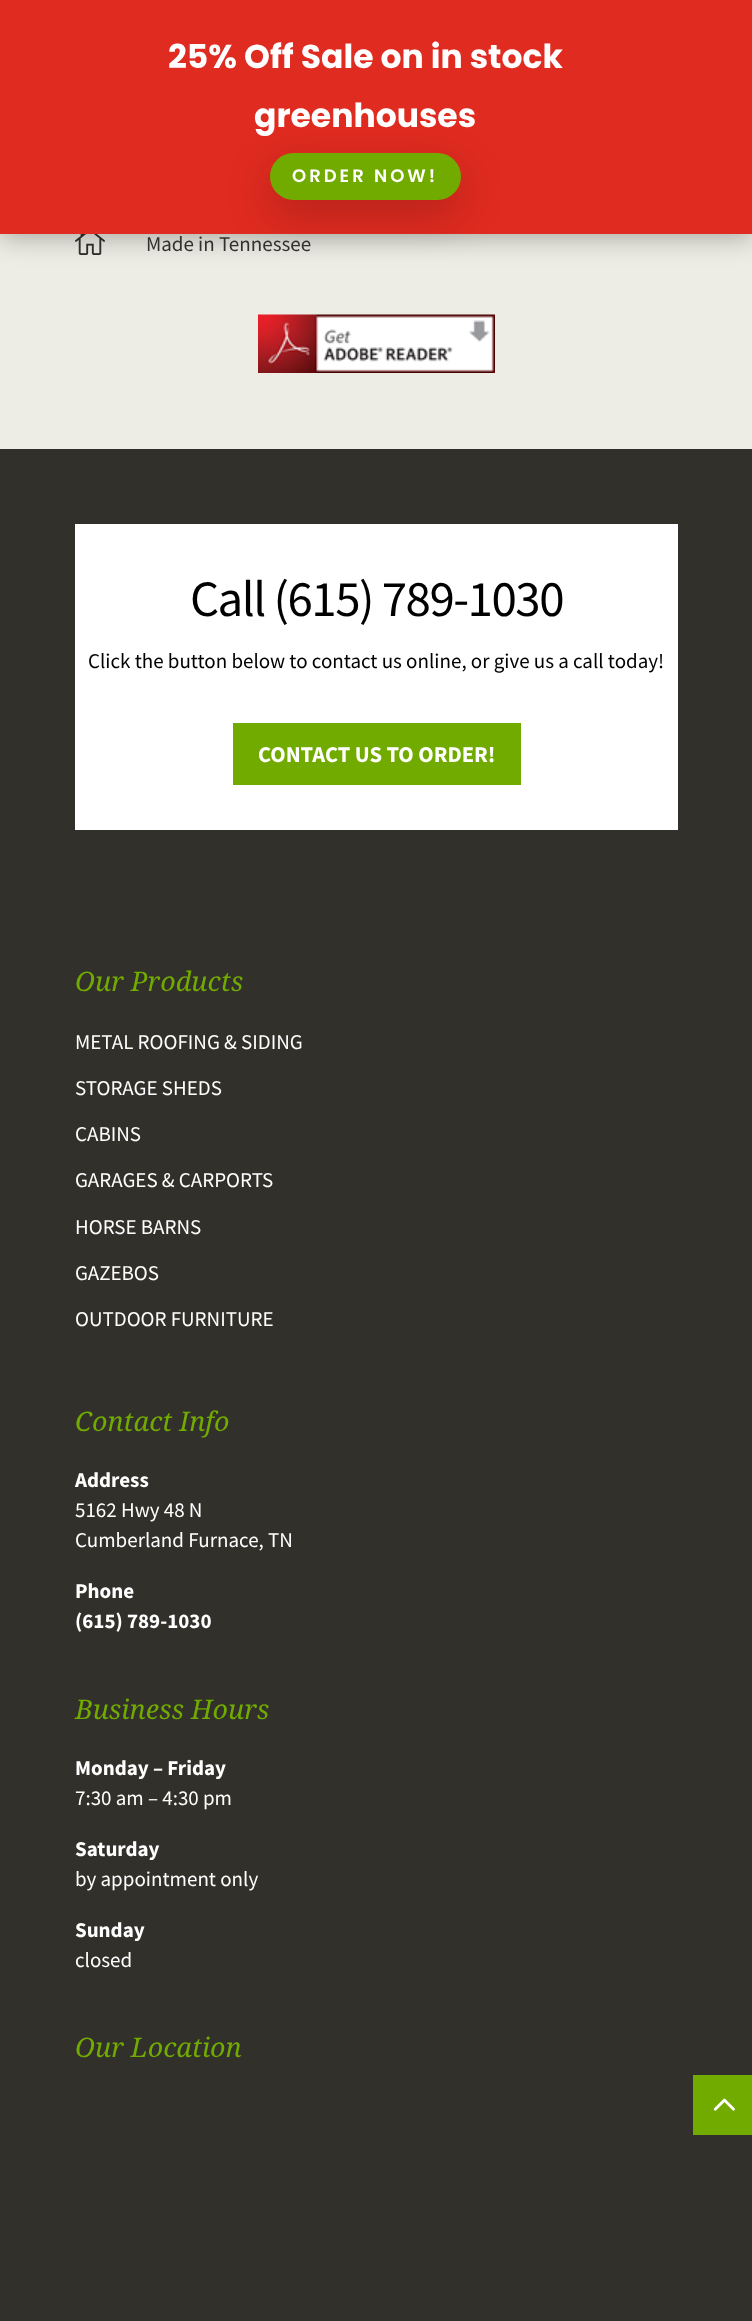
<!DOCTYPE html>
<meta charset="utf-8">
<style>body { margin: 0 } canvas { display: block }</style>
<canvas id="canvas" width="752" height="2321"></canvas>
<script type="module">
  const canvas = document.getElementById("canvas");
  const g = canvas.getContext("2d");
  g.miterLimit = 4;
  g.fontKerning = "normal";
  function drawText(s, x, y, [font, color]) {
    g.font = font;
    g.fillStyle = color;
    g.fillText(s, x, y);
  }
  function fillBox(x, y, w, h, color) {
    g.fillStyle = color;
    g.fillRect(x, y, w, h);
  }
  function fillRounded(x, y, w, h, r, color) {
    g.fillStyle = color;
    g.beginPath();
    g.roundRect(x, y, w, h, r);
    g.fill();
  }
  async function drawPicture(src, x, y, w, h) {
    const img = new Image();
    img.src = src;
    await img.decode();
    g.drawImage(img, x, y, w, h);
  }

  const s1 = ["bold 33px Poppins", "#FFFFFF"];
  const s2 = ["600 18px Poppins", "#FFFFFF"];
  const s3 = ["21px Source Sans Pro", "#32302B"];
  const s4 = ["51px Source Sans Pro", "#000000"];
  const s5 = ["21px Source Sans Pro", "#000000"];
  const s6 = ["bold 22.5px Source Sans Pro", "#FFFFFF"];
  const s7 = ["italic 27px Droid Serif", "#72AB00"];
  const s8 = ["21px Source Sans Pro", "#FFFFFF"];
  const s9 = ["bold 21px Source Sans Pro", "#FFFFFF"];

  fillBox(0, 0, 752, 2321, "#32302B");
  fillBox(0, 234, 752, 215, "#EDEDE5");
  await drawPicture("pic1.png", 75, 234, 30, 21);
  g.fillStyle = "rgba(0, 0, 0, 0.3)";
  g.filter = "blur(13.5px)";
  g.beginPath();
  g.rect(0, 3, 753, 234);
  g.fill();
  g.filter = "none";
  fillBox(0, 0, 752, 234, "#E02B20");
  drawText("25% Off Sale on in stock", 168, 68, s1);
  drawText("greenhouses", 254, 127, s1);
  g.fillStyle = "rgba(0, 0, 0, 0.2)";
  g.filter = "blur(22.5px)";
  g.beginPath();
  g.roundRect(270, 168, 191, 47, 23.5);
  g.fill();
  g.filter = "none";
  fillRounded(270, 153, 191, 47, 23.5, "#72AB00");
  g.letterSpacing = "3px";
  drawText("ORDER NOW!", 292, 182, s2);
  g.letterSpacing = "0px";
  drawText("Made in Tennessee", 146, 251, s3);
  await drawPicture("pic2.png", 258, 314, 237, 59);
  fillBox(75, 524, 603, 306, "#FFFFFF");
  g.letterSpacing = "-1.5px";
  drawText("Call (615) 789-1030", 190, 616, s4);
  g.letterSpacing = "0px";
  drawText("Click the button below to contact us online, or give us a call today!", 88, 668, s5);
  fillBox(233, 723, 288, 62, "#72AB00");
  drawText("CONTACT US TO ORDER!", 258, 762, s6);
  drawText("Our Products", 75, 991, s7);
  drawText("METAL ROOFING & SIDING", 75, 1049, s8);
  drawText("STORAGE SHEDS", 75, 1095, s8);
  drawText("CABINS", 75, 1141, s8);
  drawText("GARAGES & CARPORTS", 75, 1187, s8);
  drawText("HORSE BARNS", 75, 1234, s8);
  drawText("GAZEBOS", 75, 1280, s8);
  drawText("OUTDOOR FURNITURE", 75, 1326, s8);
  drawText("Contact Info", 75, 1431, s7);
  drawText("Address", 75, 1487, s9);
  drawText("5162 Hwy 48 N", 75, 1517, s8);
  drawText("Cumberland Furnace, TN", 75, 1547, s8);
  drawText("Phone", 75, 1598, s9);
  drawText("(615) 789-1030", 75, 1628, s9);
  drawText("Business Hours", 75, 1719, s7);
  drawText("Monday – Friday", 75, 1775, s9);
  drawText("7:30 am – 4:30 pm", 75, 1805, s8);
  drawText("Saturday", 75, 1856, s9);
  drawText("by appointment only", 75, 1886, s8);
  drawText("Sunday", 75, 1937, s9);
  drawText("closed", 75, 1967, s8);
  drawText("Our Location", 75, 2057, s7);
  fillBox(693, 2075, 59, 60, "#72AB00");
  await drawPicture("pic3.png", 713, 2098, 22, 13);
</script>
